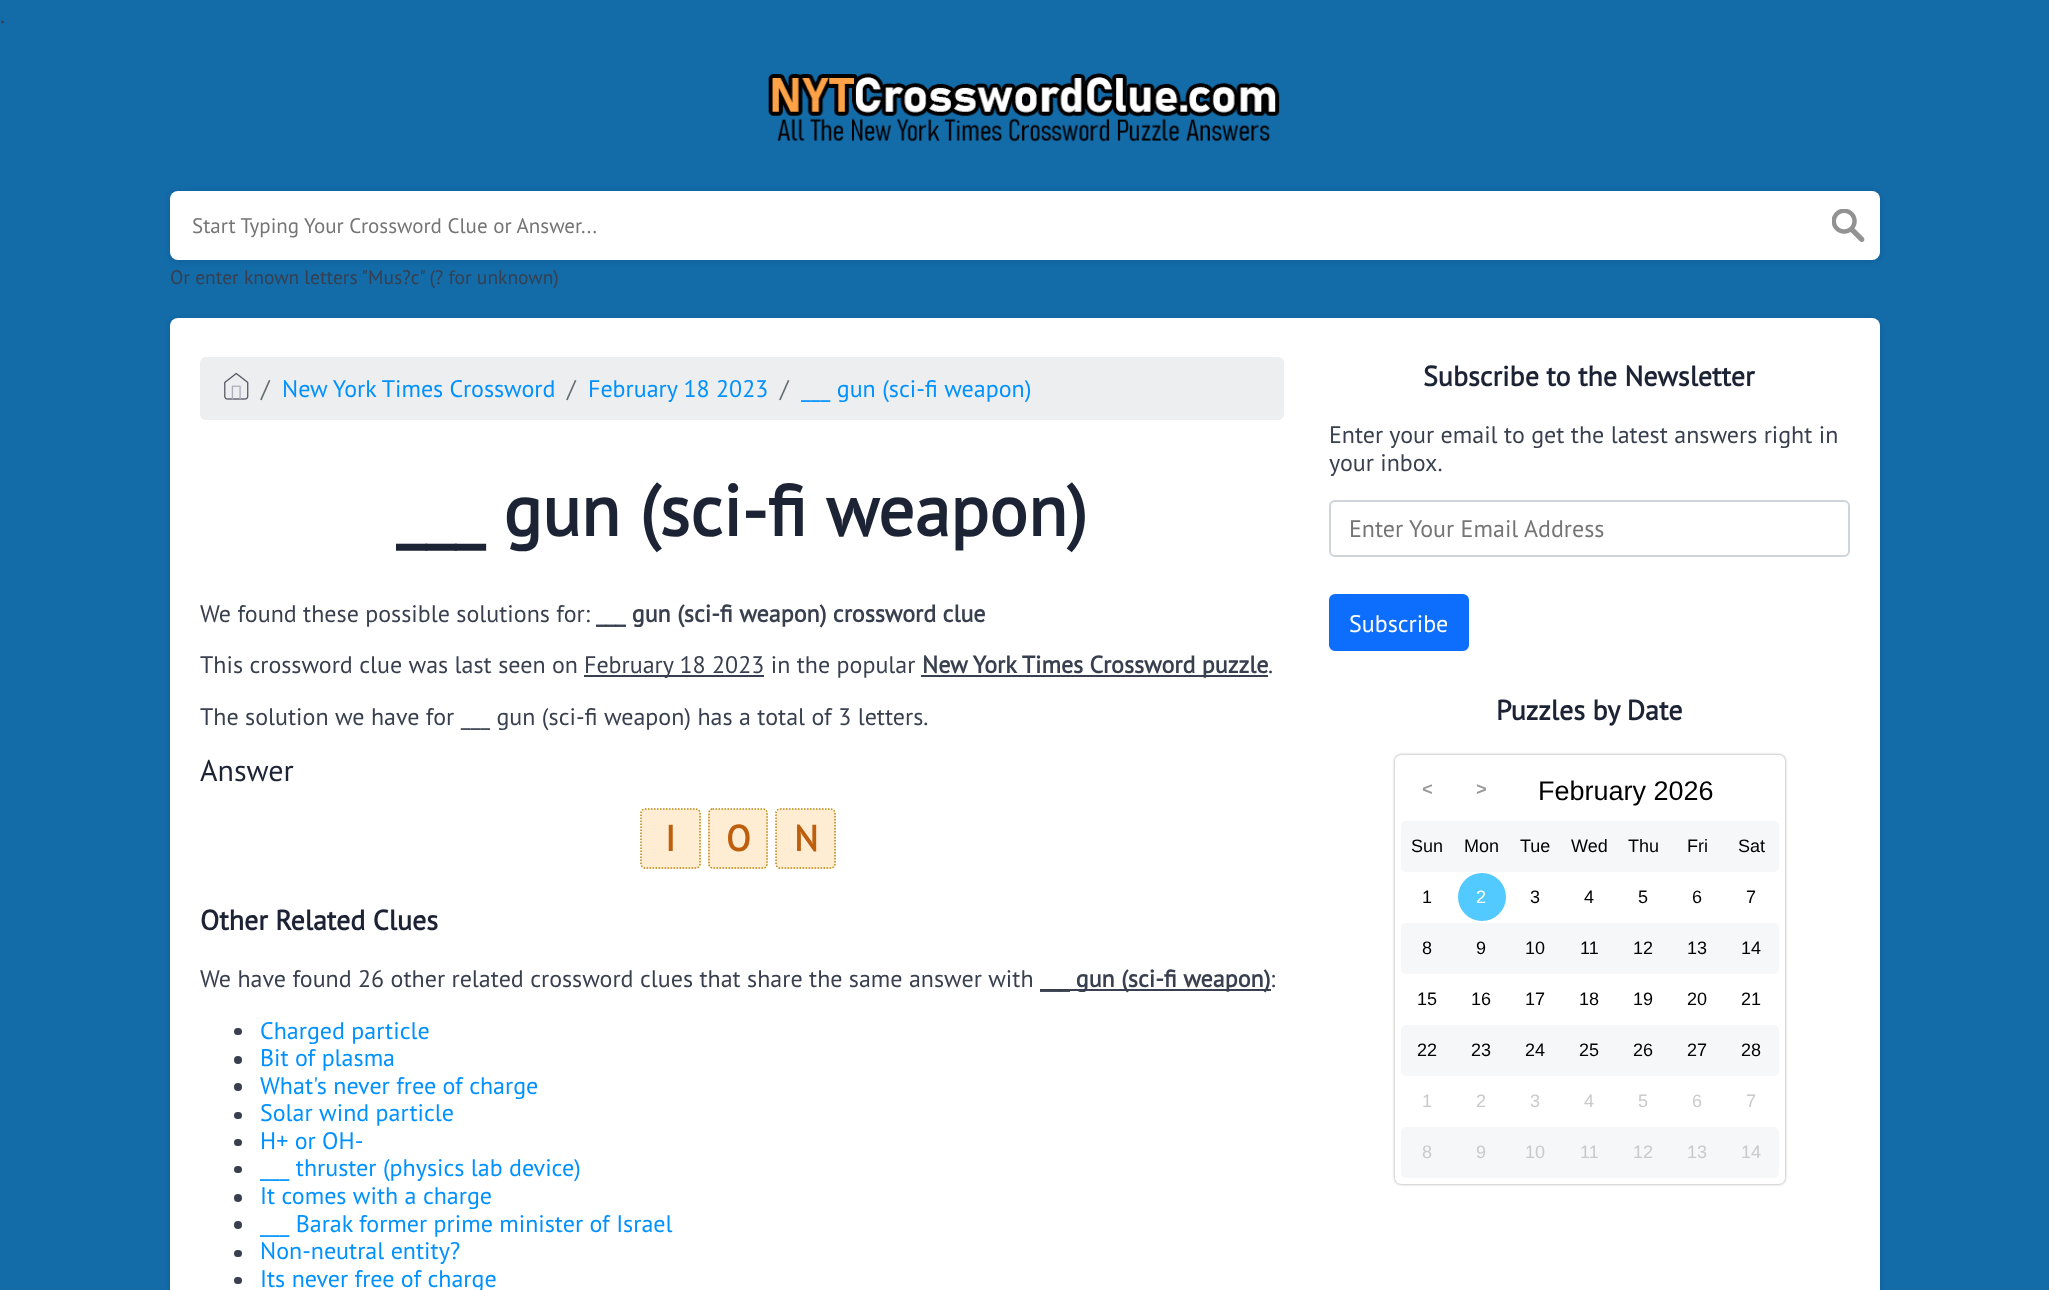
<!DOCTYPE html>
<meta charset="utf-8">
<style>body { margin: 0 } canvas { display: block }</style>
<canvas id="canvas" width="2049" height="1290"></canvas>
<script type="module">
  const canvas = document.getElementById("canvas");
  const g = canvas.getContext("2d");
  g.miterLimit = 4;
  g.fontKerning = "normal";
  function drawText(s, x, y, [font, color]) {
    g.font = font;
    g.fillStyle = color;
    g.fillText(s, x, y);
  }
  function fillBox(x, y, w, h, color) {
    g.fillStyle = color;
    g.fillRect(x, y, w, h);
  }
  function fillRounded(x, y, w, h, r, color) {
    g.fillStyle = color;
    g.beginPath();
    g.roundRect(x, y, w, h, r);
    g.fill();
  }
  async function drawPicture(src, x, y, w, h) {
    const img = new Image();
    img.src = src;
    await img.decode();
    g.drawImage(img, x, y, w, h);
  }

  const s1 = ["24px PT Sans", "#383F4E"];
  const s2 = ["21px PT Sans", "#757575"];
  const s3 = ["19.5px PT Sans", "#383F4E"];
  const s4 = ["24px PT Sans", "#636C72"];
  const s5 = ["24px PT Sans", "#0091FF"];
  const s6 = ["bold 72px PT Sans", "#1C2334"];
  const s7 = ["bold 24px PT Sans", "#383F4E"];
  const s8 = ["30px PT Sans", "#1C2334"];
  const s9 = ["bold 36px PT Sans", "#BE5F0E"];
  const s10 = ["bold 28px PT Sans", "#1C2334"];
  const s11 = ["24px PT Sans", "#757575"];
  const s12 = ["24px PT Sans", "#FFFFFF"];
  const s13 = ["bold 18px Liberation Mono", "#999999"];
  const s14 = ["27px Liberation Sans", "#000000"];
  const s15 = ["18px Liberation Sans", "#000000"];
  const s16 = ["18px Liberation Sans", "#FFFFFF"];
  const s17 = ["18px Liberation Sans", "#CACACA"];

  fillBox(0, 0, 2049, 1290, "#136BA8");
  drawText(".", 0, 23, s1);
  await drawPicture("pic1.png", 768, 73, 512, 69);
  g.fillStyle = "rgba(0, 0, 0, 0.1)";
  g.filter = "blur(3px)";
  g.beginPath();
  g.roundRect(170, 192, 1710, 69, 8);
  g.fill();
  g.filter = "none";
  fillRounded(170, 191, 1710, 69, 8, "#FFFFFF");
  drawText("Start Typing Your Crossword Clue or Answer...", 192, 233, s2);
  await drawPicture("pic2.png", 1832, 209, 33, 33);
  drawText("Or enter known letters \"Mus?c\" (? for unknown)", 170, 284, s3);
  g.fillStyle = "rgba(0, 0, 0, 0.1)";
  g.filter = "blur(3px)";
  g.beginPath();
  g.roundRect(170, 320, 1710, 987, 8);
  g.fill();
  g.filter = "none";
  fillRounded(170, 318, 1710, 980, 8, "#FFFFFF");
  fillRounded(200, 357, 1084, 63, 6, "#ECEEEF");
  await drawPicture("pic3.png", 224, 372, 25, 28);
  drawText("/", 261, 397, s4);
  drawText("New York Times Crossword", 282, 397, s5);
  drawText("/", 567, 397, s4);
  drawText("February 18 2023", 588, 397, s5);
  drawText("/", 780, 397, s4);
  drawText("___ gun (sci-fi weapon)", 801, 397, s5);
  drawText("___ gun (sci-fi weapon)", 396, 536, s6);
  drawText("We found these possible solutions for:", 200, 622, s1);
  drawText("___ gun (sci-fi weapon) crossword clue", 596, 622, s7);
  drawText("This crossword clue was last seen on", 200, 673, s1);
  fillBox(584, 675, 180, 2, "#383F4E");
  drawText("February 18 2023 in the popular", 584, 673, s1);
  fillBox(921, 675, 347, 2, "#383F4E");
  drawText("New York Times Crossword puzzle", 922, 673, s7);
  drawText(".", 1268, 673, s1);
  drawText("The solution we have for ___ gun (sci-fi weapon) has a total of 3 letters.", 200, 725, s1);
  drawText("Answer", 200, 781, s8);
  fillRounded(641, 809, 60, 60, 5, "#FFEDD3");
  g.beginPath();
  g.moveTo(645, 809);
  g.lineTo(696, 809);
  g.bezierCurveTo(698, 809, 700, 811, 700, 813);
  g.lineTo(700, 864);
  g.bezierCurveTo(700, 866, 698, 868, 696, 868);
  g.lineTo(645, 868);
  g.bezierCurveTo(643, 868, 641, 866, 641, 864);
  g.lineTo(641, 813);
  g.bezierCurveTo(641, 811, 643, 809, 645, 809);
  g.closePath();
  g.strokeStyle = "#BC860E";
  g.lineWidth = 1.5;
  g.setLineDash([1.5, 1.5]);
  g.stroke();
  drawText("I", 665, 851, s9);
  fillRounded(708, 809, 60, 60, 5, "#FFEDD3");
  g.beginPath();
  g.moveTo(712.5, 809);
  g.lineTo(763.5, 809);
  g.bezierCurveTo(765.5, 809, 767, 811, 767, 813);
  g.lineTo(767, 864);
  g.bezierCurveTo(767, 866, 765.5, 868, 763.5, 868);
  g.lineTo(712.5, 868);
  g.bezierCurveTo(710.5, 868, 709, 866, 709, 864);
  g.lineTo(709, 813);
  g.bezierCurveTo(709, 811, 710.5, 809, 712.5, 809);
  g.closePath();
  g.stroke();
  drawText("O", 726, 851, s9);
  fillRounded(776, 809, 60, 60, 5, "#FFEDD3");
  g.beginPath();
  g.moveTo(780, 809);
  g.lineTo(831, 809);
  g.bezierCurveTo(833, 809, 835, 811, 835, 813);
  g.lineTo(835, 864);
  g.bezierCurveTo(835, 866, 833, 868, 831, 868);
  g.lineTo(780, 868);
  g.bezierCurveTo(778, 868, 776, 866, 776, 864);
  g.lineTo(776, 813);
  g.bezierCurveTo(776, 811, 778, 809, 780, 809);
  g.closePath();
  g.stroke();
  drawText("N", 794, 851, s9);
  drawText("Other Related Clues", 200, 930, s10);
  drawText("We have found 26 other related crossword clues that share the same answer with", 200, 987, s1);
  fillBox(1040, 989, 231, 2, "#383F4E");
  drawText("___ gun (sci-fi weapon)", 1040, 987, s7);
  drawText(":", 1270, 987, s1);
  fillRounded(234, 1028, 8, 7, 3.5, "#383F4E");
  drawText("Charged particle", 260, 1039, s5);
  g.fillStyle = "#383F4E";
  g.beginPath();
  g.arc(238, 1060, 4, 0, Math.PI * 2);
  g.fill();
  drawText("Bit of plasma", 260, 1066, s5);
  g.fillStyle = "#383F4E";
  g.beginPath();
  g.arc(238, 1087, 4, 0, Math.PI * 2);
  g.fill();
  drawText("What's never free of charge", 260, 1094, s5);
  fillRounded(234, 1112, 8, 7, 3.5, "#383F4E");
  drawText("Solar wind particle", 260, 1121, s5);
  fillRounded(234, 1139, 8, 7, 3.5, "#383F4E");
  drawText("H+ or OH-", 260, 1149, s5);
  fillRounded(234, 1166, 8, 7, 3.5, "#383F4E");
  drawText("___ thruster (physics lab device)", 260, 1176, s5);
  g.fillStyle = "#383F4E";
  g.beginPath();
  g.arc(238, 1198, 4, 0, Math.PI * 2);
  g.fill();
  drawText("It comes with a charge", 260, 1204, s5);
  g.fillStyle = "#383F4E";
  g.beginPath();
  g.arc(238, 1225, 4, 0, Math.PI * 2);
  g.fill();
  drawText("___ Barak former prime minister of Israel", 260, 1232, s5);
  fillRounded(234, 1250, 8, 7, 3.5, "#383F4E");
  drawText("Non-neutral entity?", 260, 1259, s5);
  fillRounded(234, 1277, 8, 7, 3.5, "#383F4E");
  drawText("Its never free of charge", 260, 1287, s5);
  drawText("Subscribe to the Newsletter", 1423, 386, s10);
  drawText("Enter your email to get the latest answers right in", 1329, 443, s1);
  drawText("your inbox.", 1329, 471, s1);
  g.beginPath();
  g.roundRect(1330, 501, 519, 55, 5);
  g.strokeStyle = "#CED4DA";
  g.lineWidth = 2;
  g.setLineDash([]);
  g.stroke();
  drawText("Enter Your Email Address", 1349, 537, s11);
  g.fillStyle = "#0D6EFD";
  g.beginPath();
  g.roundRect(1330, 595, 138, 55, 5);
  g.fill();
  g.strokeStyle = "#0D6EFD";
  g.stroke();
  drawText("Subscribe", 1349, 632, s12);
  drawText("Puzzles by Date", 1496, 720, s10);
  g.fillStyle = "rgba(0, 0, 0, 0.4)";
  g.filter = "blur(1.5px)";
  g.beginPath();
  g.roundRect(1395, 755, 390, 429, 6);
  g.fill();
  g.filter = "none";
  fillRounded(1395, 755, 390, 429, 6, "#FFFFFF");
  drawText("<", 1422, 795, s13);
  drawText(">", 1476, 795, s13);
  drawText("February 2026", 1538, 800, s14);
  fillRounded(1401, 821, 378, 51, 5, "#F6F7F8");
  drawText("Sun", 1411, 852, s15);
  drawText("Mon", 1464, 852, s15);
  drawText("Tue", 1520, 852, s15);
  drawText("Wed", 1571, 852, s15);
  drawText("Thu", 1628, 852, s15);
  drawText("Fri", 1687, 852, s15);
  drawText("Sat", 1738, 852, s15);
  drawText("1", 1422, 903, s15);
  g.fillStyle = "#52C9FF";
  g.beginPath();
  g.arc(1482, 897, 24, 0, Math.PI * 2);
  g.fill();
  drawText("2", 1476, 903, s16);
  drawText("3", 1530, 903, s15);
  drawText("4", 1584, 903, s15);
  drawText("5", 1638, 903, s15);
  drawText("6", 1692, 903, s15);
  drawText("7", 1746, 903, s15);
  fillRounded(1401, 923, 378, 51, 5, "#F6F7F8");
  drawText("8", 1422, 954, s15);
  drawText("9", 1476, 954, s15);
  drawText("10", 1525, 954, s15);
  drawText("11", 1580, 954, s15);
  drawText("12", 1633, 954, s15);
  drawText("13", 1687, 954, s15);
  drawText("14", 1741, 954, s15);
  drawText("15", 1417, 1005, s15);
  drawText("16", 1471, 1005, s15);
  drawText("17", 1525, 1005, s15);
  drawText("18", 1579, 1005, s15);
  drawText("19", 1633, 1005, s15);
  drawText("20", 1687, 1005, s15);
  drawText("21", 1741, 1005, s15);
  fillRounded(1401, 1025, 378, 51, 5, "#F6F7F8");
  drawText("22", 1417, 1056, s15);
  drawText("23", 1471, 1056, s15);
  drawText("24", 1525, 1056, s15);
  drawText("25", 1579, 1056, s15);
  drawText("26", 1633, 1056, s15);
  drawText("27", 1687, 1056, s15);
  drawText("28", 1741, 1056, s15);
  drawText("1", 1422, 1107, s17);
  drawText("2", 1476, 1107, s17);
  drawText("3", 1530, 1107, s17);
  drawText("4", 1584, 1107, s17);
  drawText("5", 1638, 1107, s17);
  drawText("6", 1692, 1107, s17);
  drawText("7", 1746, 1107, s17);
  fillRounded(1401, 1127, 378, 51, 5, "#F6F7F8");
  drawText("8", 1422, 1158, s17);
  drawText("9", 1476, 1158, s17);
  drawText("10", 1525, 1158, s17);
  drawText("11", 1580, 1158, s17);
  drawText("12", 1633, 1158, s17);
  drawText("13", 1687, 1158, s17);
  drawText("14", 1741, 1158, s17);
</script>
